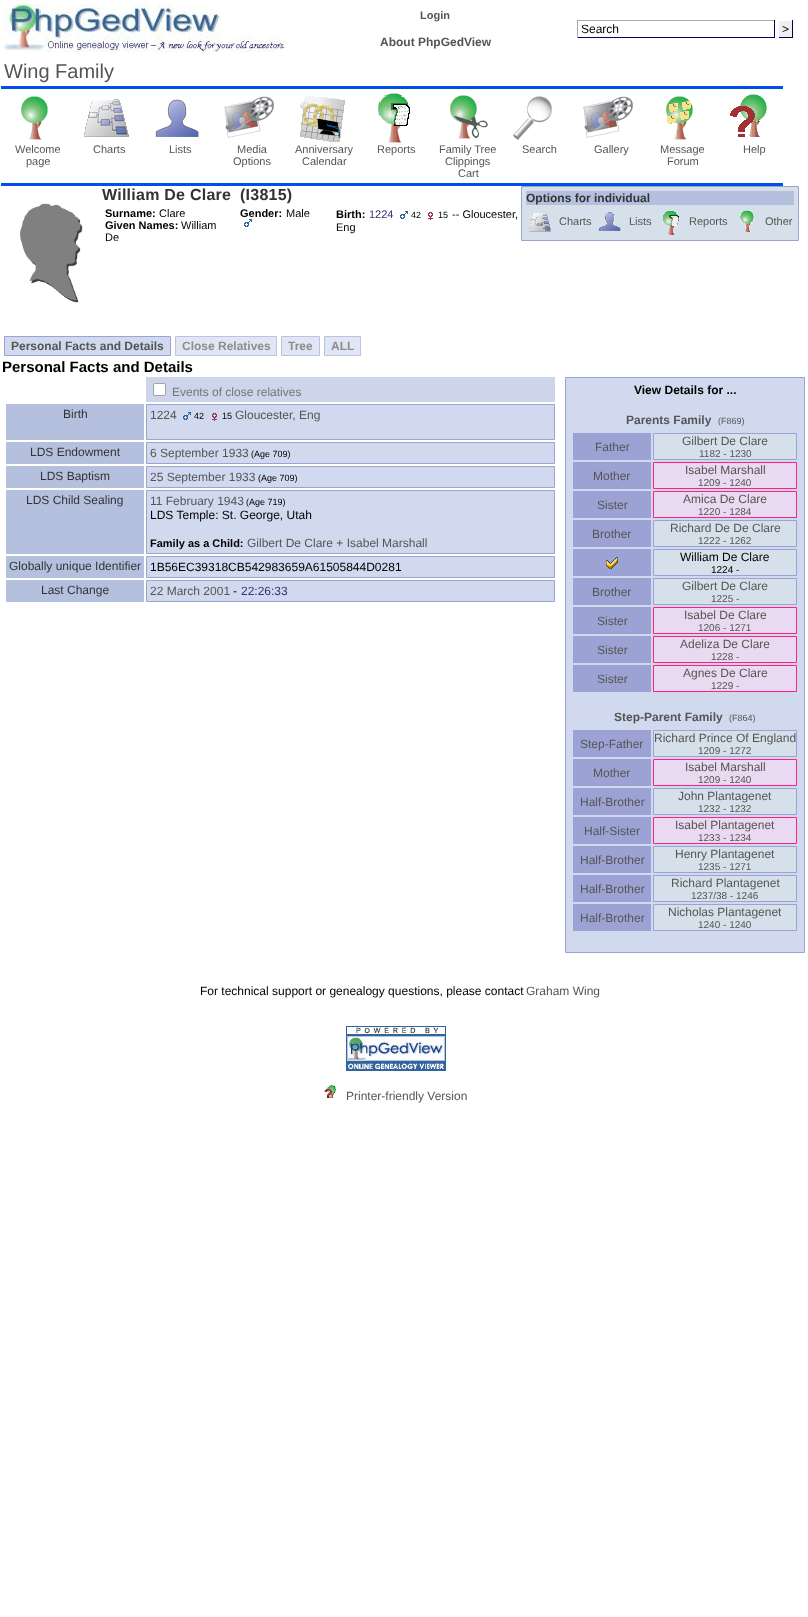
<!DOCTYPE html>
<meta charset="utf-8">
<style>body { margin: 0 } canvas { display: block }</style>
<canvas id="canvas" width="808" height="1617"></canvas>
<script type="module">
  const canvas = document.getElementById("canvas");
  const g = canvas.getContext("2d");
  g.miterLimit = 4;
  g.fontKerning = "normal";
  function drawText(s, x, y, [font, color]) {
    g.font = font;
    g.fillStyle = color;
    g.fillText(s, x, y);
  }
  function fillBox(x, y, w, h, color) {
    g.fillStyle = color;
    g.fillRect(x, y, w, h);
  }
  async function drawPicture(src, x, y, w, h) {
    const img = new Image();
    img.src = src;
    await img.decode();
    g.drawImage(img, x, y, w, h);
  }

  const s1 = ["bold 11px Liberation Sans", "#555555"];
  const s2 = ["bold 12px Liberation Sans", "#555555"];
  const s3 = ["12px Liberation Sans", "#000000"];
  const s4 = ["20px Liberation Sans", "#555555"];
  const s5 = ["11px Liberation Sans", "#555555"];
  const s6 = ["bold 16px Liberation Sans", "#333333"];
  const s7 = ["bold 11px Liberation Sans", "#000000"];
  const s8 = ["11px Liberation Sans", "#000000"];
  const s9 = ["11px Liberation Sans", "#333377"];
  const s10 = ["9px Liberation Sans", "#000000"];
  const s11 = ["bold 12px Liberation Sans", "#333333"];
  const s12 = ["bold 12px Liberation Sans", "#8D8D8D"];
  const s13 = ["bold 15px Liberation Sans", "#000000"];
  const s14 = ["12px Liberation Sans", "#767676"];
  const s15 = ["12px Liberation Sans", "#333333"];
  const s16 = ["12px Liberation Sans", "#555555"];
  const s17 = ["12px Liberation Sans", "#333377"];
  const s18 = ["bold 12px Liberation Sans", "#000000"];
  const s19 = ["9px Liberation Sans", "#555555"];
  const s20 = ["10px Liberation Sans", "#555555"];
  const s21 = ["10px Liberation Sans", "#000000"];

  fillBox(0, 0, 808, 1617, "#FFFFFF");
  await drawPicture("pic1.png", 4, 4, 280, 48);
  drawText("Login", 420, 19, s1);
  drawText("About PhpGedView", 380, 46, s2);
  fillBox(577, 20, 198, 1, "#AAAAAA");
  fillBox(774, 20, 1, 18, "#000066");
  fillBox(577, 37, 198, 1, "#000066");
  fillBox(577, 20, 1, 18, "#AAAAAA");
  drawText("Search", 581, 33, s3);
  fillBox(779, 21, 13, 16, "#EFEFEF");
  fillBox(792, 20, 1, 18, "#000044");
  fillBox(778, 37, 15, 1, "#000044");
  fillBox(778, 37, 1, 1, "#FFFFFF");
  drawText(">", 782, 33, s3);
  drawText("Wing Family", 4, 78, s4);
  fillBox(1, 86, 782, 3, "#0050E8");
  await drawPicture("pic2.png", 21, 96, 27, 44);
  drawText("Welcome", 15, 153, s5);
  drawText("page", 26, 165, s5);
  await drawPicture("pic3.png", 84, 99, 45, 38);
  drawText("Charts", 93, 153, s5);
  await drawPicture("pic4.png", 155, 99, 44, 38);
  drawText("Lists", 169, 153, s5);
  await drawPicture("pic5.png", 224, 96, 50, 42);
  drawText("Media", 237, 153, s5);
  drawText("Options", 233, 165, s5);
  await drawPicture("pic6.png", 300, 96, 45, 46);
  drawText("Anniversary", 295, 153, s5);
  drawText("Calendar", 302, 165, s5);
  await drawPicture("pic7.png", 378, 93, 32, 50);
  drawText("Reports", 377, 153, s5);
  await drawPicture("pic8.png", 450, 95, 38, 44);
  drawText("Family Tree", 439, 153, s5);
  drawText("Clippings", 445, 165, s5);
  drawText("Cart", 458, 177, s5);
  await drawPicture("pic9.png", 513, 96, 39, 44);
  drawText("Search", 522, 153, s5);
  await drawPicture("pic5.png", 583, 96, 50, 42);
  drawText("Gallery", 594, 153, s5);
  await drawPicture("pic10.png", 666, 96, 27, 44);
  drawText("Message", 660, 153, s5);
  drawText("Forum", 667, 165, s5);
  await drawPicture("pic11.png", 730, 94, 37, 43);
  drawText("Help", 743, 153, s5);
  fillBox(1, 183, 782, 3, "#0050E8");
  await drawPicture("pic12.png", 19, 203, 64, 100);
  g.letterSpacing = "0.25px";
  drawText("William De Clare", 102, 200, s6);
  drawText("(I3815)", 240, 200, s6);
  g.letterSpacing = "0px";
  drawText("Surname:", 105, 217, s7);
  drawText("Clare", 159, 217, s8);
  drawText("Given Names:", 105, 229, s7);
  drawText("William", 181, 229, s8);
  drawText("De", 105, 241, s8);
  drawText("Gender:", 240, 217, s7);
  drawText("Male", 286, 217, s8);
  await drawPicture("pic13.png", 244, 219, 8, 8);
  drawText("Birth:", 336, 218, s7);
  drawText("1224", 369, 218, s9);
  await drawPicture("pic13.png", 400, 211, 8, 8);
  drawText("42", 411, 218, s10);
  await drawPicture("pic14.png", 428, 212, 5, 8);
  drawText("15", 438, 218, s10);
  drawText("-- Gloucester,", 452, 218, s8);
  drawText("Eng", 336, 231, s8);
  g.fillStyle = "#D6E0EA";
  g.beginPath();
  g.rect(521.5, 186.5, 277, 54);
  g.fill();
  g.strokeStyle = "#9CA3D4";
  g.stroke();
  fillBox(526, 191, 268, 14, "#B5C0DF");
  drawText("Options for individual", 526, 202, s11);
  await drawPicture("pic15.png", 529, 213, 22, 19);
  drawText("Charts", 559, 225, s5);
  await drawPicture("pic16.png", 599, 212, 22, 19);
  drawText("Lists", 629, 225, s5);
  await drawPicture("pic17.png", 663, 211, 16, 24);
  drawText("Reports", 689, 225, s5);
  await drawPicture("pic18.png", 740, 210, 14, 22);
  drawText("Other", 765, 225, s5);
  g.fillStyle = "#D1D9EF";
  g.beginPath();
  g.rect(4.5, 336.5, 166, 19);
  g.fill();
  g.stroke();
  drawText("Personal Facts and Details", 11, 350, s2);
  g.fillStyle = "#E0E6F4";
  g.beginPath();
  g.rect(175.5, 336.5, 101, 19);
  g.fill();
  g.strokeStyle = "#BDC1E2";
  g.stroke();
  drawText("Close Relatives", 182, 350, s12);
  g.fillStyle = "#E0E6F4";
  g.beginPath();
  g.rect(281.5, 336.5, 38, 19);
  g.fill();
  g.stroke();
  drawText("Tree", 288, 350, s12);
  g.fillStyle = "#E0E6F4";
  g.beginPath();
  g.rect(324.5, 336.5, 36, 19);
  g.fill();
  g.stroke();
  drawText("ALL", 331, 350, s12);
  drawText("Personal Facts and Details", 2, 372, s13);
  fillBox(146, 377, 409, 25, "#CDD5EA");
  g.fillStyle = "#FFFFFF";
  g.beginPath();
  g.roundRect(153.5, 383.5, 12, 12, 1.5);
  g.fill();
  g.strokeStyle = "#A3A3A3";
  g.stroke();
  drawText("Events of close relatives", 172, 396, s14);
  fillBox(6, 404, 138, 36, "#B5C0DF");
  drawText("Birth", 63, 418, s15);
  g.fillStyle = "#D1D9EF";
  g.beginPath();
  g.rect(146.5, 404.5, 408, 35);
  g.fill();
  g.strokeStyle = "#9CA3D4";
  g.stroke();
  drawText("1224", 150, 419, s16);
  await drawPicture("pic19.png", 183, 412, 8, 8);
  drawText("42", 194, 419, s10);
  await drawPicture("pic20.png", 212, 413, 5, 8);
  drawText("15", 222, 419, s10);
  drawText("Gloucester, Eng", 235, 419, s16);
  fillBox(6, 442, 138, 22, "#B5C0DF");
  drawText("LDS Endowment", 30, 456, s15);
  g.fillStyle = "#D1D9EF";
  g.beginPath();
  g.rect(146.5, 442.5, 408, 21);
  g.fill();
  g.stroke();
  drawText("6 September 1933", 150, 457, s16);
  drawText("(Age 709)", 251, 457, s10);
  fillBox(6, 466, 138, 22, "#B5C0DF");
  drawText("LDS Baptism", 40, 480, s15);
  g.fillStyle = "#D1D9EF";
  g.beginPath();
  g.rect(146.5, 466.5, 408, 21);
  g.fill();
  g.stroke();
  drawText("25 September 1933", 150, 481, s16);
  drawText("(Age 709)", 258, 481, s10);
  fillBox(6, 490, 138, 64, "#B5C0DF");
  drawText("LDS Child Sealing", 26, 504, s15);
  g.fillStyle = "#D1D9EF";
  g.beginPath();
  g.rect(146.5, 490.5, 408, 63);
  g.fill();
  g.stroke();
  drawText("11 February 1943", 150, 505, s16);
  drawText("(Age 719)", 246, 505, s10);
  drawText("LDS Temple: St. George, Utah", 150, 519, s3);
  drawText("Family as a Child:", 150, 547, s7);
  drawText("Gilbert De Clare + Isabel Marshall", 247, 547, s16);
  fillBox(6, 556, 138, 22, "#B5C0DF");
  drawText("Globally unique Identifier", 9, 570, s15);
  g.fillStyle = "#D1D9EF";
  g.beginPath();
  g.rect(146.5, 556.5, 408, 21);
  g.fill();
  g.stroke();
  drawText("1B56EC39318CB542983659A61505844D0281", 150, 571, s3);
  fillBox(6, 580, 138, 22, "#B5C0DF");
  drawText("Last Change", 41, 594, s15);
  g.fillStyle = "#D1D9EF";
  g.beginPath();
  g.rect(146.5, 580.5, 408, 21);
  g.fill();
  g.stroke();
  drawText("22 March 2001", 150, 595, s16);
  drawText("-", 233, 595, s3);
  drawText("22:26:33", 241, 595, s17);
  g.fillStyle = "#D1D9EF";
  g.beginPath();
  g.rect(565.5, 377.5, 239, 575);
  g.fill();
  g.stroke();
  drawText("View Details for ...", 634, 394, s18);
  drawText("Parents Family", 626, 424, s2);
  drawText("(F869)", 718, 424, s19);
  fillBox(573, 433, 78, 27, "#9CA3D4");
  drawText("Father", 595, 451, s16);
  g.fillStyle = "#D6E0EA";
  g.beginPath();
  g.rect(653.5, 433.5, 143, 26);
  g.fill();
  g.stroke();
  drawText("Gilbert De Clare", 682, 445, s16);
  drawText("1182 - 1230", 699, 457, s20);
  fillBox(573, 462, 78, 27, "#9CA3D4");
  drawText("Mother", 593, 480, s16);
  g.fillStyle = "#E9DAF1";
  g.beginPath();
  g.rect(653.5, 462.5, 143, 26);
  g.fill();
  g.strokeStyle = "#FF2080";
  g.stroke();
  drawText("Isabel Marshall", 685, 474, s16);
  drawText("1209 - 1240", 698, 486, s20);
  fillBox(573, 491, 78, 27, "#9CA3D4");
  drawText("Sister", 597, 509, s16);
  g.fillStyle = "#E9DAF1";
  g.beginPath();
  g.rect(653.5, 491.5, 143, 26);
  g.fill();
  g.stroke();
  drawText("Amica De Clare", 683, 503, s16);
  drawText("1220 - 1284", 698, 515, s20);
  fillBox(573, 520, 78, 27, "#9CA3D4");
  drawText("Brother", 592, 538, s16);
  g.fillStyle = "#D6E0EA";
  g.beginPath();
  g.rect(653.5, 520.5, 143, 26);
  g.fill();
  g.strokeStyle = "#9CA3D4";
  g.stroke();
  drawText("Richard De De Clare", 670, 532, s16);
  drawText("1222 - 1262", 698, 544, s20);
  fillBox(573, 549, 78, 27, "#9CA3D4");
  await drawPicture("pic21.png", 606, 557, 12, 12);
  g.fillStyle = "#D6E0EA";
  g.beginPath();
  g.rect(653.5, 549.5, 143, 26);
  g.fill();
  g.stroke();
  drawText("William De Clare", 680, 561, s3);
  drawText("1224 -", 711, 573, s21);
  fillBox(573, 578, 78, 27, "#9CA3D4");
  drawText("Brother", 592, 596, s16);
  g.fillStyle = "#D6E0EA";
  g.beginPath();
  g.rect(653.5, 578.5, 143, 26);
  g.fill();
  g.stroke();
  drawText("Gilbert De Clare", 682, 590, s16);
  drawText("1225 -", 711, 602, s20);
  fillBox(573, 607, 78, 27, "#9CA3D4");
  drawText("Sister", 597, 625, s16);
  g.fillStyle = "#E9DAF1";
  g.beginPath();
  g.rect(653.5, 607.5, 143, 26);
  g.fill();
  g.strokeStyle = "#FF2080";
  g.stroke();
  drawText("Isabel De Clare", 684, 619, s16);
  drawText("1206 - 1271", 698, 631, s20);
  fillBox(573, 636, 78, 27, "#9CA3D4");
  drawText("Sister", 597, 654, s16);
  g.fillStyle = "#E9DAF1";
  g.beginPath();
  g.rect(653.5, 636.5, 143, 26);
  g.fill();
  g.stroke();
  drawText("Adeliza De Clare", 680, 648, s16);
  drawText("1228 -", 711, 660, s20);
  fillBox(573, 665, 78, 27, "#9CA3D4");
  drawText("Sister", 597, 683, s16);
  g.fillStyle = "#E9DAF1";
  g.beginPath();
  g.rect(653.5, 665.5, 143, 26);
  g.fill();
  g.stroke();
  drawText("Agnes De Clare", 683, 677, s16);
  drawText("1229 -", 711, 689, s20);
  drawText("Step-Parent Family", 614, 721, s2);
  drawText("(F864)", 729, 721, s19);
  fillBox(573, 730, 78, 27, "#9CA3D4");
  drawText("Step-Father", 580, 748, s16);
  g.fillStyle = "#D6E0EA";
  g.beginPath();
  g.rect(653.5, 730.5, 143, 26);
  g.fill();
  g.strokeStyle = "#9CA3D4";
  g.stroke();
  drawText("Richard Prince Of England", 654, 742, s16);
  drawText("1209 - 1272", 698, 754, s20);
  fillBox(573, 759, 78, 27, "#9CA3D4");
  drawText("Mother", 593, 777, s16);
  g.fillStyle = "#E9DAF1";
  g.beginPath();
  g.rect(653.5, 759.5, 143, 26);
  g.fill();
  g.strokeStyle = "#FF2080";
  g.stroke();
  drawText("Isabel Marshall", 685, 771, s16);
  drawText("1209 - 1240", 698, 783, s20);
  fillBox(573, 788, 78, 27, "#9CA3D4");
  drawText("Half-Brother", 580, 806, s16);
  g.fillStyle = "#D6E0EA";
  g.beginPath();
  g.rect(653.5, 788.5, 143, 26);
  g.fill();
  g.strokeStyle = "#9CA3D4";
  g.stroke();
  drawText("John Plantagenet", 678, 800, s16);
  drawText("1232 - 1232", 698, 812, s20);
  fillBox(573, 817, 78, 27, "#9CA3D4");
  drawText("Half-Sister", 584, 835, s16);
  g.fillStyle = "#E9DAF1";
  g.beginPath();
  g.rect(653.5, 817.5, 143, 26);
  g.fill();
  g.strokeStyle = "#FF2080";
  g.stroke();
  drawText("Isabel Plantagenet", 675, 829, s16);
  drawText("1233 - 1234", 698, 841, s20);
  fillBox(573, 846, 78, 27, "#9CA3D4");
  drawText("Half-Brother", 580, 864, s16);
  g.fillStyle = "#D6E0EA";
  g.beginPath();
  g.rect(653.5, 846.5, 143, 26);
  g.fill();
  g.strokeStyle = "#9CA3D4";
  g.stroke();
  drawText("Henry Plantagenet", 675, 858, s16);
  drawText("1235 - 1271", 698, 870, s20);
  fillBox(573, 875, 78, 27, "#9CA3D4");
  drawText("Half-Brother", 580, 893, s16);
  g.fillStyle = "#D6E0EA";
  g.beginPath();
  g.rect(653.5, 875.5, 143, 26);
  g.fill();
  g.stroke();
  drawText("Richard Plantagenet", 671, 887, s16);
  drawText("1237/38 - 1246", 691, 899, s20);
  fillBox(573, 904, 78, 27, "#9CA3D4");
  drawText("Half-Brother", 580, 922, s16);
  g.fillStyle = "#D6E0EA";
  g.beginPath();
  g.rect(653.5, 904.5, 143, 26);
  g.fill();
  g.stroke();
  drawText("Nicholas Plantagenet", 668, 916, s16);
  drawText("1240 - 1240", 698, 928, s20);
  drawText("For technical support or genealogy questions, please contact", 200, 995, s3);
  drawText("Graham Wing", 526, 995, s16);
  await drawPicture("pic22.png", 346, 1026, 100, 45);
  await drawPicture("pic23.png", 324, 1085, 12, 13);
  drawText("Printer-friendly Version", 346, 1100, s16);
</script>
